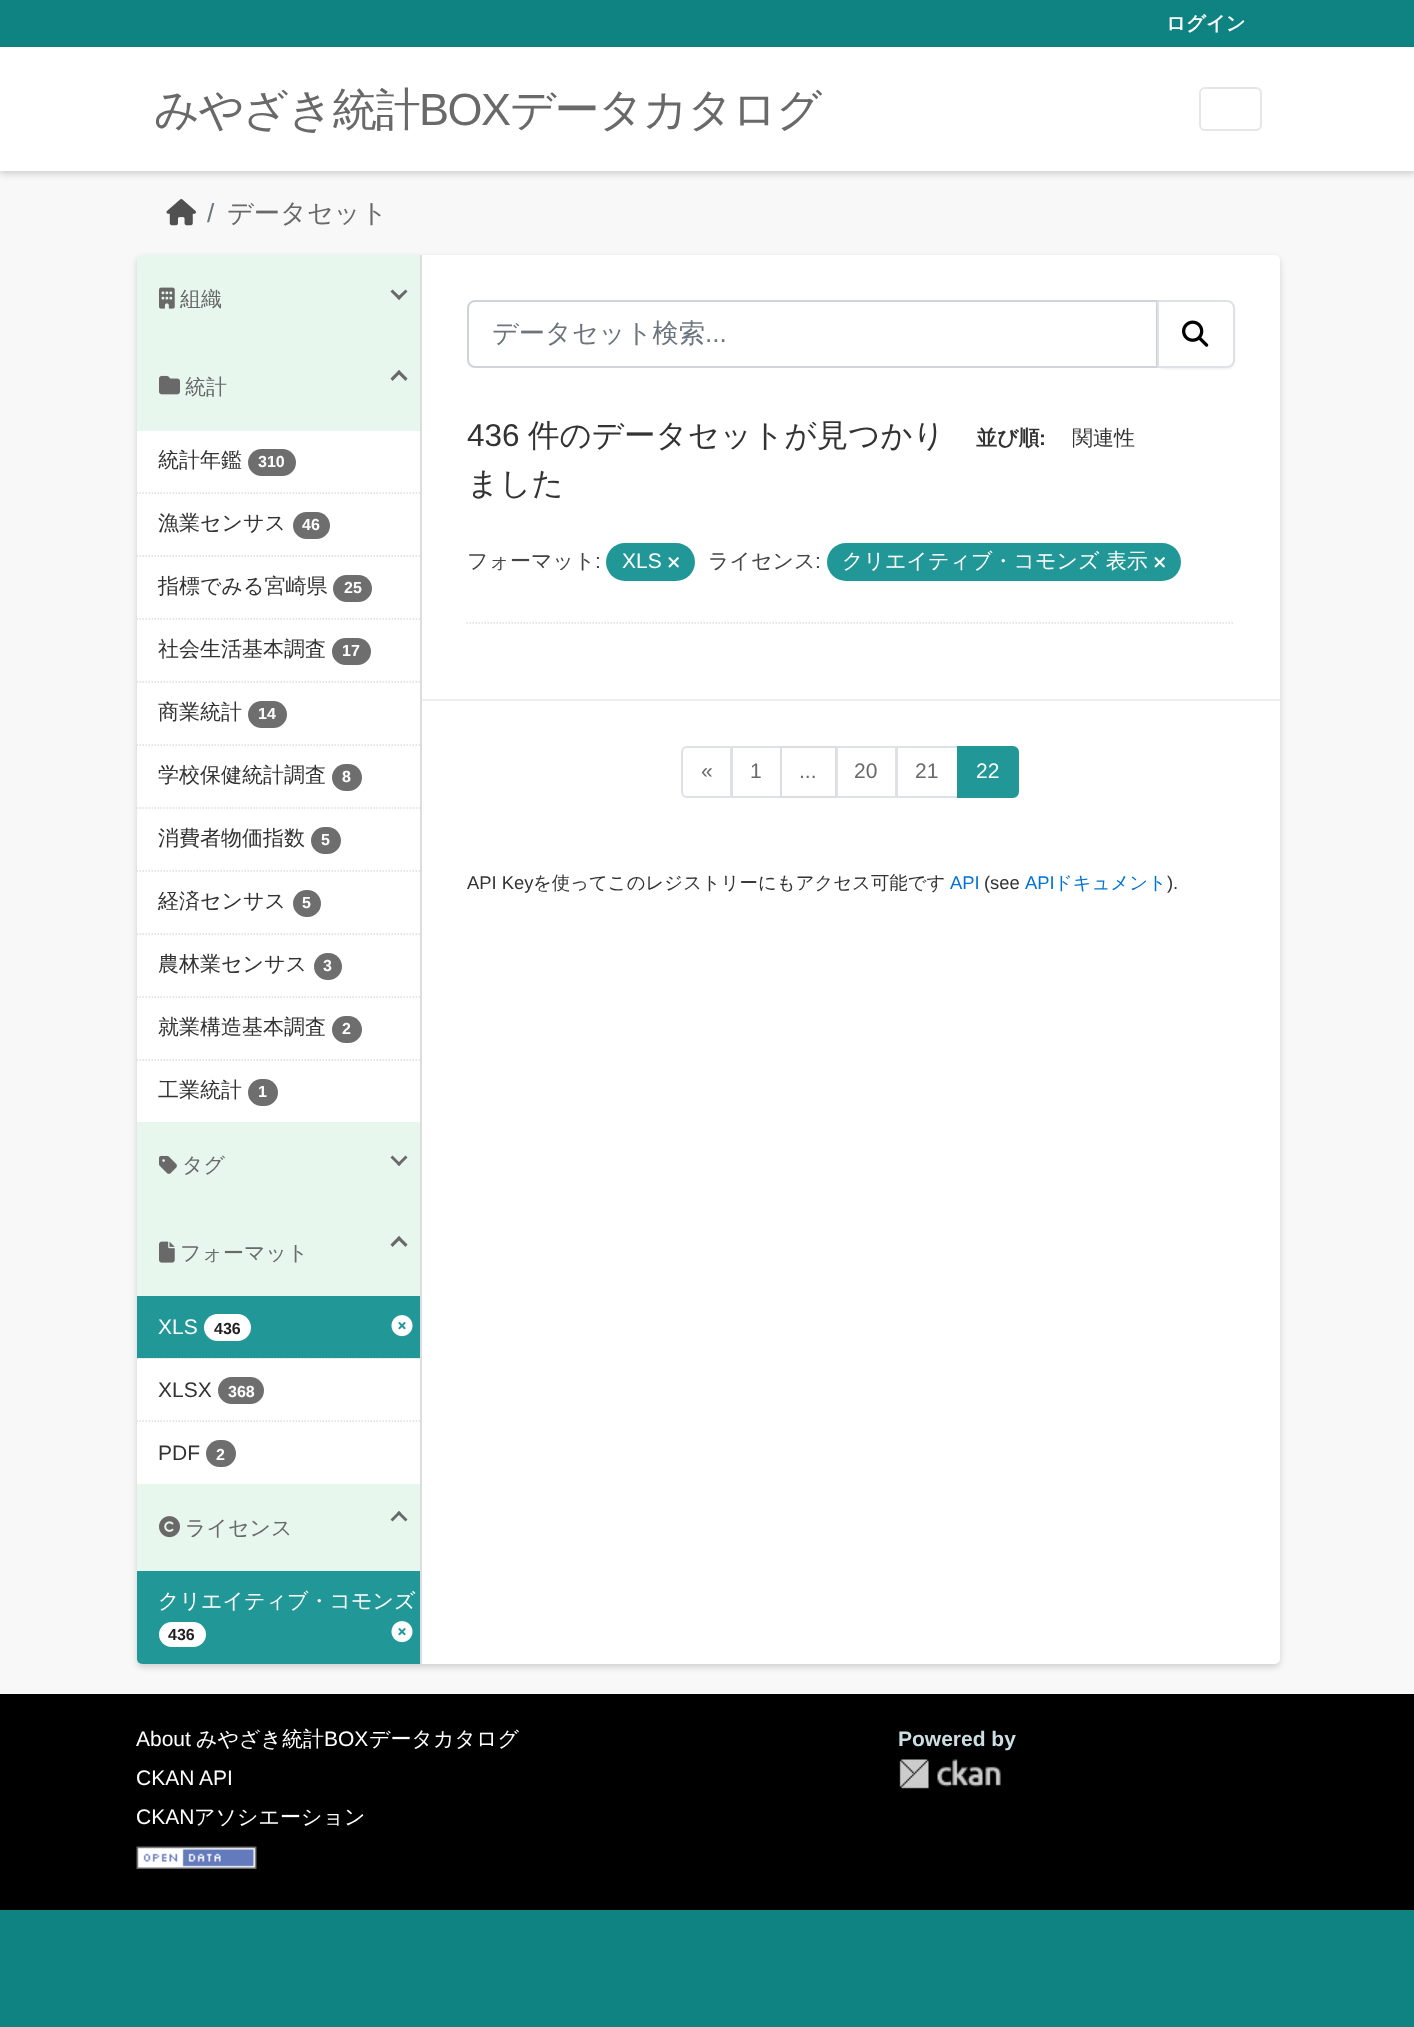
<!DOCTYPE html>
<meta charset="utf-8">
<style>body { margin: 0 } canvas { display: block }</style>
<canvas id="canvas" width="1414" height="2027"></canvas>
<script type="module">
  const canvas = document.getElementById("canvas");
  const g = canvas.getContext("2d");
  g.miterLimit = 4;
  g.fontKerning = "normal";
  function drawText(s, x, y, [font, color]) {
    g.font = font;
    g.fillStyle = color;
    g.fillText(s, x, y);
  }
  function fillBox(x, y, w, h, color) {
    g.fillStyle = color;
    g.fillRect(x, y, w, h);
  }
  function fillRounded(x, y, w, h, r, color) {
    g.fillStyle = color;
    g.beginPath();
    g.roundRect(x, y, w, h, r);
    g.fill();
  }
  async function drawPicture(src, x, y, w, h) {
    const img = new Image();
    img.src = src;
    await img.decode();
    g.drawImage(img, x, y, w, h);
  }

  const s1 = ["bold 19.5px WenQuanYi Zen Hei", "#FFFFFF"];
  const s2 = ["500 45px WenQuanYi Zen Hei", "#696969"];
  const s3 = ["45px Liberation Sans", "#696969"];
  const s4 = ["26.25px Liberation Sans", "#6C757D"];
  const s5 = ["500 26.25px WenQuanYi Zen Hei", "#696969"];
  const s6 = ["500 21px WenQuanYi Zen Hei", "#696969"];
  const s7 = ["500 21px WenQuanYi Zen Hei", "#333333"];
  const s8 = ["bold 16px Liberation Sans", "#FFFFFF"];
  const s9 = ["21px Liberation Sans", "#FFFFFF"];
  const s10 = ["bold 16px Liberation Sans", "#1E1E1E"];
  const s11 = ["21px Liberation Sans", "#333333"];
  const s12 = ["500 21px WenQuanYi Zen Hei", "#FFFFFF"];
  const s13 = ["500 26.25px WenQuanYi Zen Hei", "#6C757D"];
  const s14 = ["31.5px Liberation Sans", "#333333"];
  const s15 = ["500 31.5px WenQuanYi Zen Hei", "#333333"];
  const s16 = ["bold 21px WenQuanYi Zen Hei", "#333333"];
  const s17 = ["bold 21px Liberation Sans", "#333333"];
  const s18 = ["500 21px WenQuanYi Zen Hei", "#444444"];
  const s19 = ["21px Liberation Sans", "#444444"];
  const s20 = ["21px Liberation Sans", "#696969"];
  const s21 = ["18.4px Liberation Sans", "#333333"];
  const s22 = ["500 18.4px WenQuanYi Zen Hei", "#333333"];
  const s23 = ["18.4px Liberation Sans", "#0072D5"];
  const s24 = ["500 18.4px WenQuanYi Zen Hei", "#0072D5"];
  const s25 = ["bold 21px Liberation Sans", "#CCDEE3"];

  fillBox(0, 0, 1414, 2027, "#0F8382");
  drawText("ログイン", 1166, 30, s1);
  fillBox(0, 171, 1414, 1523, "#F8F8F8");
  g.fillStyle = "rgba(0, 0, 0, 0.16)";
  g.filter = "blur(3px)";
  g.beginPath();
  g.rect(0, 50, 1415, 124);
  g.fill();
  g.filter = "none";
  fillBox(0, 47, 1414, 124, "#FFFFFF");
  g.letterSpacing = "-1.5px";
  drawText("みやざき統計", 154, 125, s2);
  drawText("BOX", 419, 125, s3);
  drawText("データカタログ", 510, 125, s2);
  g.beginPath();
  g.roundRect(1200, 88, 61, 42, 5);
  g.strokeStyle = "#E6E6E6";
  g.lineWidth = 2;
  g.stroke();
  await drawPicture("pic1.png", 166, 199, 30, 27);
  g.letterSpacing = "0px";
  drawText("/", 207, 222, s4);
  drawText("データセット", 227, 222, s5);
  g.fillStyle = "rgba(0, 0, 0, 0.16)";
  g.filter = "blur(3px)";
  g.beginPath();
  g.roundRect(137, 258, 1143, 1409, 5);
  g.fill();
  g.filter = "none";
  fillRounded(137, 255, 1143, 1409, 5, "#FFFFFF");
  g.fillStyle = "#E7F7EE";
  g.beginPath();
  g.roundRect(137, 255, 283, 87, [5, 0, 0, 0]);
  g.fill();
  await drawPicture("pic2.png", 159, 287, 16, 22);
  drawText("組織", 180, 306, s6);
  g.beginPath();
  g.moveTo(405.5, 289.5);
  g.lineTo(407.5, 291.5);
  g.lineTo(399, 300);
  g.lineTo(397, 297.5);
  g.closePath();
  g.fill();
  g.beginPath();
  g.moveTo(392.5, 289.5);
  g.lineTo(401, 297.5);
  g.lineTo(399, 300);
  g.lineTo(390.5, 291.5);
  g.closePath();
  g.fill();
  fillBox(137, 342, 283, 89, "#E7F7EE");
  await drawPicture("pic3.png", 159, 375, 21, 20);
  drawText("統計", 185, 394, s6);
  g.beginPath();
  g.moveTo(399, 370);
  g.lineTo(407.5, 378.5);
  g.lineTo(405.5, 381);
  g.lineTo(397, 372.5);
  g.closePath();
  g.fill();
  g.beginPath();
  g.moveTo(399, 370);
  g.lineTo(401, 372.5);
  g.lineTo(392.5, 381);
  g.lineTo(390.5, 378.5);
  g.closePath();
  g.fill();
  g.beginPath();
  g.moveTo(136.5, 493);
  g.lineTo(420, 493);
  g.strokeStyle = "#DDDDDD";
  g.lineWidth = 1.5;
  g.setLineDash([1.5, 1.5]);
  g.stroke();
  drawText("統計年鑑", 158, 467, s7);
  fillRounded(248, 449, 48, 27, 13.5, "#6E6E6E");
  drawText("310", 258, 467, s8);
  g.beginPath();
  g.moveTo(136.5, 556);
  g.lineTo(420, 556);
  g.stroke();
  drawText("漁業センサス", 158, 530, s7);
  fillRounded(293, 512, 37, 27, 13.5, "#6E6E6E");
  drawText("46", 302, 530, s8);
  g.beginPath();
  g.moveTo(136.5, 619);
  g.lineTo(420, 619);
  g.stroke();
  drawText("指標でみる宮崎県", 158, 593, s7);
  fillRounded(333, 575, 39, 27, 13.5, "#6E6E6E");
  drawText("25", 344, 593, s8);
  g.beginPath();
  g.moveTo(136.5, 682);
  g.lineTo(420, 682);
  g.stroke();
  drawText("社会生活基本調査", 158, 656, s7);
  fillRounded(332, 638, 39, 27, 13.5, "#6E6E6E");
  drawText("17", 342, 656, s8);
  g.beginPath();
  g.moveTo(136.5, 745);
  g.lineTo(420, 745);
  g.stroke();
  drawText("商業統計", 158, 719, s7);
  fillRounded(248, 701, 39, 27, 13.5, "#6E6E6E");
  drawText("14", 258, 719, s8);
  g.beginPath();
  g.moveTo(136.5, 808);
  g.lineTo(420, 808);
  g.stroke();
  drawText("学校保健統計調査", 158, 782, s7);
  fillRounded(332, 764, 30, 27, 13.5, "#6E6E6E");
  drawText("8", 342, 782, s8);
  g.beginPath();
  g.moveTo(136.5, 871);
  g.lineTo(420, 871);
  g.stroke();
  drawText("消費者物価指数", 158, 845, s7);
  fillRounded(311, 827, 30, 27, 13.5, "#6E6E6E");
  drawText("5", 321, 845, s8);
  g.beginPath();
  g.moveTo(136.5, 934);
  g.lineTo(420, 934);
  g.stroke();
  drawText("経済センサス", 158, 908, s7);
  fillRounded(293, 890, 28, 27, 13.5, "#6E6E6E");
  drawText("5", 302, 908, s8);
  g.beginPath();
  g.moveTo(136.5, 997);
  g.lineTo(420, 997);
  g.stroke();
  drawText("農林業センサス", 158, 971, s7);
  fillRounded(314, 953, 28, 27, 13.5, "#6E6E6E");
  drawText("3", 323, 971, s8);
  g.beginPath();
  g.moveTo(136.5, 1060);
  g.lineTo(420, 1060);
  g.stroke();
  drawText("就業構造基本調査", 158, 1034, s7);
  fillRounded(332, 1016, 30, 27, 13.5, "#6E6E6E");
  drawText("2", 342, 1034, s8);
  drawText("工業統計", 158, 1097, s7);
  fillRounded(248, 1079, 30, 27, 13.5, "#6E6E6E");
  drawText("1", 258, 1097, s8);
  fillBox(137, 1122, 283, 174, "#E7F7EE");
  await drawPicture("pic4.png", 159, 1155, 18, 19);
  drawText("タグ", 182, 1172, s6);
  g.beginPath();
  g.moveTo(405.5, 1155.5);
  g.lineTo(407.5, 1157.5);
  g.lineTo(399, 1166);
  g.lineTo(397, 1164);
  g.closePath();
  g.fill();
  g.beginPath();
  g.moveTo(392.5, 1155.5);
  g.lineTo(401, 1164);
  g.lineTo(399, 1166);
  g.lineTo(390.5, 1157.5);
  g.closePath();
  g.fill();
  await drawPicture("pic5.png", 159, 1241, 16, 22);
  drawText("フォーマット", 180, 1260, s6);
  g.beginPath();
  g.moveTo(399, 1236);
  g.lineTo(407.5, 1244.5);
  g.lineTo(405.5, 1247);
  g.lineTo(397, 1238.5);
  g.closePath();
  g.fill();
  g.beginPath();
  g.moveTo(399, 1236);
  g.lineTo(401, 1238.5);
  g.lineTo(392.5, 1247);
  g.lineTo(390.5, 1244.5);
  g.closePath();
  g.fill();
  fillBox(137, 1358, 283, 1, "#F6F6F6");
  g.beginPath();
  g.moveTo(136.5, 1358);
  g.lineTo(420, 1358);
  g.stroke();
  fillBox(137, 1296, 283, 62, "#219897");
  drawText("XLS", 158, 1334, s9);
  fillRounded(204, 1314, 47, 27, 13.5, "#FFFFFF");
  drawText("436", 214, 1334, s10);
  await drawPicture("pic6.png", 391, 1315, 22, 22);
  g.beginPath();
  g.moveTo(136.5, 1421);
  g.lineTo(420, 1421);
  g.stroke();
  drawText("XLSX", 158, 1397, s11);
  fillRounded(218, 1377, 46, 27, 13.5, "#6E6E6E");
  drawText("368", 228, 1397, s8);
  drawText("PDF", 158, 1460, s11);
  fillRounded(206, 1440, 30, 27, 13.5, "#6E6E6E");
  drawText("2", 216, 1460, s8);
  fillBox(137, 1484, 283, 87, "#E7F7EE");
  await drawPicture("pic7.png", 159, 1516, 21, 22);
  drawText("ライセンス", 185, 1535, s6);
  g.beginPath();
  g.moveTo(399, 1511);
  g.lineTo(407.5, 1519.5);
  g.lineTo(405.5, 1521.5);
  g.lineTo(397, 1513);
  g.closePath();
  g.fill();
  g.beginPath();
  g.moveTo(399, 1511);
  g.lineTo(401, 1513);
  g.lineTo(392.5, 1521.5);
  g.lineTo(390.5, 1519.5);
  g.closePath();
  g.fill();
  g.fillStyle = "#219897";
  g.beginPath();
  g.roundRect(137, 1571, 283, 93, [0, 0, 0, 5]);
  g.fill();
  drawText("クリエイティブ・コモンズ", 158, 1608, s12);
  fillRounded(159, 1622, 47, 25, 12.5, "#FFFFFF");
  drawText("436", 168, 1640, s10);
  await drawPicture("pic6.png", 391, 1621, 22, 22);
  fillBox(420, 255, 2, 1409, "#DDDDDD");
  g.beginPath();
  g.moveTo(466.5, 623);
  g.lineTo(1234.5, 623);
  g.stroke();
  g.beginPath();
  g.roundRect(468, 301, 689, 66, [7, 0, 0, 7]);
  g.strokeStyle = "#CED4DA";
  g.lineWidth = 2;
  g.setLineDash([]);
  g.stroke();
  drawText("データセット検索", 492, 342, s13);
  drawText("...", 705, 342, s4);
  g.fillStyle = "rgba(0, 0, 0, 0.07)";
  g.filter = "blur(1px)";
  g.beginPath();
  g.roundRect(1157, 302, 78, 67, 8);
  g.fill();
  g.filter = "none";
  g.fillStyle = "#FFFFFF";
  g.beginPath();
  g.roundRect(1158, 301, 76, 66, [0, 7, 7, 0]);
  g.fill();
  g.strokeStyle = "#DEE2E6";
  g.stroke();
  await drawPicture("pic8.png", 1182, 320, 27, 27);
  drawText("436", 467, 446, s14);
  drawText("件のデータセットが見つかり", 528, 446, s15);
  drawText("ました", 467, 494, s15);
  drawText("並び順", 976, 445, s16);
  drawText(":", 1039, 445, s17);
  g.save();
  g.beginPath();
  g.rect(1073, 423, 106, 32);
  g.clip();
  drawText("関連性", 1072, 445, s7);
  g.restore();
  drawText("フォーマット", 467, 568, s18);
  drawText(":", 595, 568, s19);
  fillRounded(606, 543, 89, 38, 19, "#219897");
  drawText("XLS", 622, 568, s9);
  await drawPicture("pic9.png", 668, 557, 11, 11);
  drawText("ライセンス", 708, 568, s18);
  drawText(":", 815, 568, s19);
  fillRounded(827, 543, 354, 38, 19, "#219897");
  drawText("クリエイティブ・コモンズ 表示", 842, 568, s12);
  await drawPicture("pic9.png", 1154, 557, 11, 11);
  fillBox(422, 699, 858, 2, "#EEEEEE");
  g.beginPath();
  g.roundRect(682, 747, 49, 50, [5, 0, 0, 5]);
  g.stroke();
  drawText("«", 701, 778, s20);
  g.strokeRect(732, 747, 49, 50);
  drawText("1", 750, 778, s20);
  g.strokeStyle = "#DDDDDD";
  g.strokeRect(781, 747, 55, 50);
  drawText("...", 799, 778, s20);
  g.strokeStyle = "#DEE2E6";
  g.strokeRect(837, 747, 59, 50);
  drawText("20", 854, 778, s20);
  g.strokeRect(897, 747, 61, 50);
  drawText("21", 915, 778, s20);
  g.fillStyle = "#219897";
  g.beginPath();
  g.roundRect(958, 747, 60, 50, [0, 5, 5, 0]);
  g.fill();
  g.strokeStyle = "#219897";
  g.stroke();
  drawText("22", 976, 778, s9);
  drawText("API Key", 467, 889, s21);
  drawText("を使ってこのレジストリーにもアクセス可能です", 533, 889, s22);
  drawText("API", 950, 889, s23);
  drawText("(see", 984, 889, s21);
  drawText("API", 1025, 889, s23);
  drawText("ドキュメント", 1054, 889, s24);
  drawText(").", 1167, 889, s21);
  fillBox(0, 1694, 1414, 216, "#000000");
  drawText("About", 136, 1746, s9);
  drawText("みやざき統計", 196, 1746, s12);
  drawText("BOX", 324, 1746, s9);
  drawText("データカタログ", 369, 1746, s12);
  drawText("CKAN API", 136, 1785, s9);
  drawText("CKAN", 136, 1824, s9);
  drawText("アソシエーション", 194, 1824, s12);
  await drawPicture("pic10.png", 136, 1846, 121, 23);
  drawText("Powered by", 898, 1746, s25);
  await drawPicture("pic11.png", 899, 1759, 102, 30);
</script>
